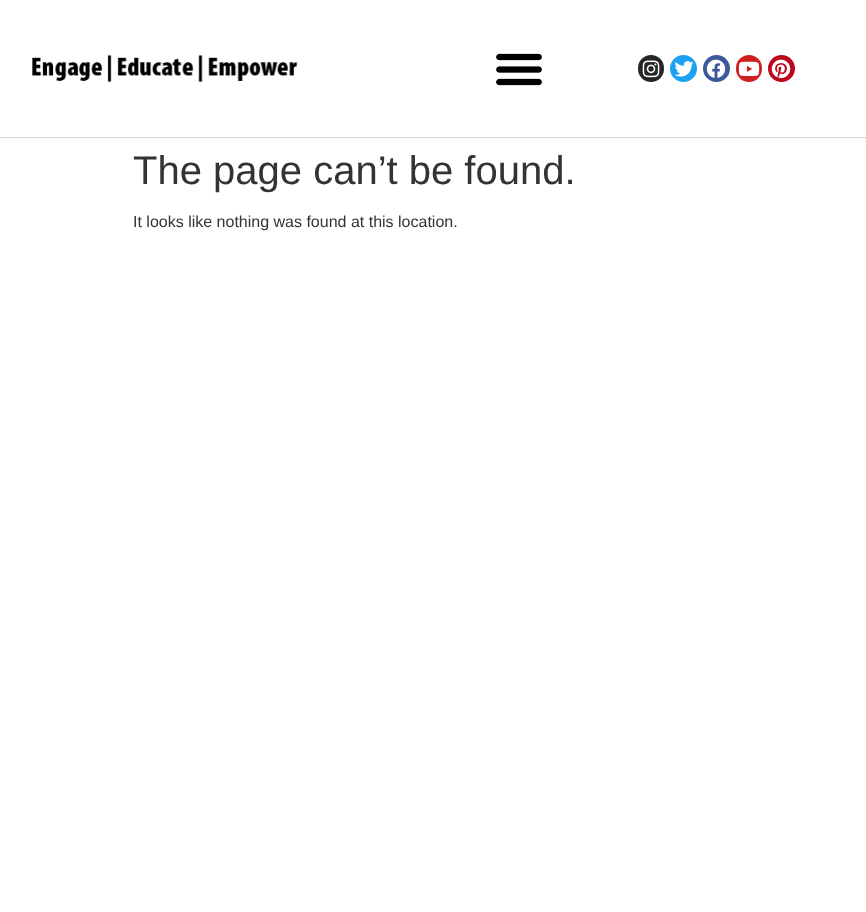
<!DOCTYPE html>
<meta charset="utf-8">
<style>body { margin: 0 } canvas { display: block }</style>
<canvas id="canvas" width="866" height="912"></canvas>
<script type="module">
  const canvas = document.getElementById("canvas");
  const g = canvas.getContext("2d");
  g.miterLimit = 4;
  g.fontKerning = "normal";
  function drawText(s, x, y, [font, color]) {
    g.font = font;
    g.fillStyle = color;
    g.fillText(s, x, y);
  }
  function fillBox(x, y, w, h, color) {
    g.fillStyle = color;
    g.fillRect(x, y, w, h);
  }
  function fillRounded(x, y, w, h, r, color) {
    g.fillStyle = color;
    g.beginPath();
    g.roundRect(x, y, w, h, r);
    g.fill();
  }
  async function drawPicture(src, x, y, w, h) {
    const img = new Image();
    img.src = src;
    await img.decode();
    g.drawImage(img, x, y, w, h);
  }

  const s1 = ["40px Liberation Sans", "#333333"];
  const s2 = ["16px Liberation Sans", "#333333"];

  fillBox(0, 0, 866, 912, "#FFFFFF");
  fillBox(0, 137, 866, 1, "#D3D3D3");
  await drawPicture("pic1.png", 32, 55, 266, 27);
  await drawPicture("pic2.png", 496, 53, 46, 33);
  fillRounded(638, 55, 26, 27, 13, "#262626");
  await drawPicture("pic3.png", 642, 60, 18, 18);
  g.fillStyle = "#1DA1F2";
  g.beginPath();
  g.arc(683.5, 68.5, 13.5, 0, Math.PI * 2);
  g.fill();
  await drawPicture("pic4.png", 674, 61, 20, 16);
  g.fillStyle = "#3B5998";
  g.beginPath();
  g.arc(716.5, 68.5, 13.5, 0, Math.PI * 2);
  g.fill();
  await drawPicture("pic5.png", 706, 59, 20, 19);
  fillRounded(736, 55, 26, 27, 13, "#CD201F");
  await drawPicture("pic6.png", 738, 61, 22, 15);
  g.fillStyle = "#BD081C";
  g.beginPath();
  g.arc(781.5, 68.5, 13.5, 0, Math.PI * 2);
  g.fill();
  await drawPicture("pic7.png", 771, 59, 20, 20);
  drawText("The page can’t be found.", 133, 184, s1);
  drawText("It looks like nothing was found at this location.", 133, 227, s2);
</script>
